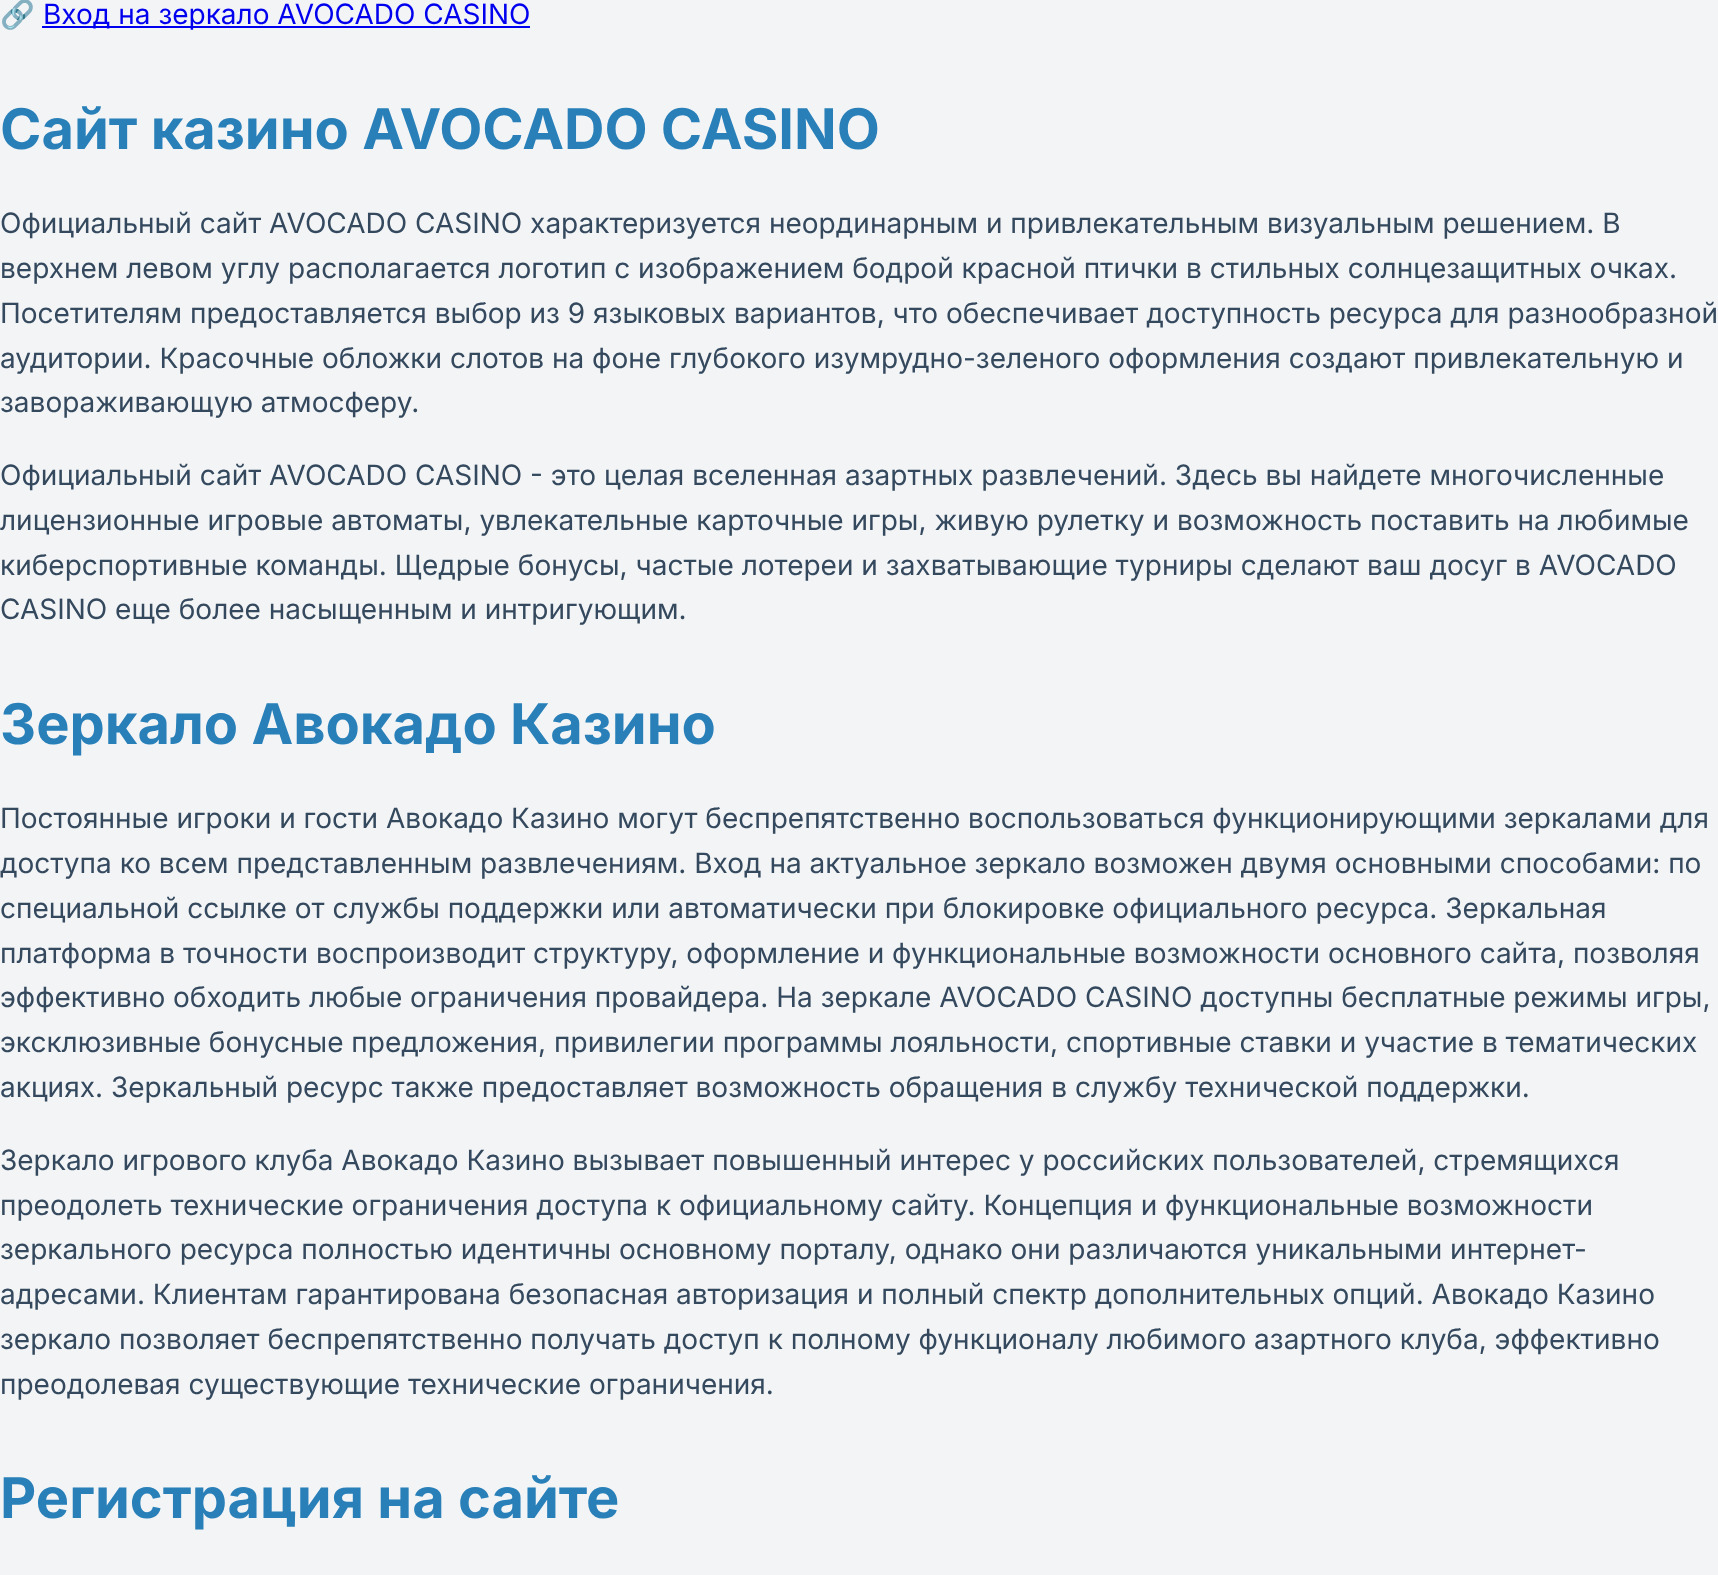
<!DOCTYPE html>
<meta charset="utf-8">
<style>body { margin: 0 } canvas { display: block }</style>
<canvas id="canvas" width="1718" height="1575"></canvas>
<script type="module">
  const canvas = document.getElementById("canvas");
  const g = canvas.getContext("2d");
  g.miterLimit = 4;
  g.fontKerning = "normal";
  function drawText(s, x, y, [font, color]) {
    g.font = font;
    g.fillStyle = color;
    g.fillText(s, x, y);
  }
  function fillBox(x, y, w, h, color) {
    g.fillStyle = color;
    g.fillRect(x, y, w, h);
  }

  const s1 = ["28px Noto Color Emoji", "#34495E"];
  const s2 = ["28px Inter", "#0000EE"];
  const s3 = ["bold 56px Inter", "#2980B9"];
  const s4 = ["28px Inter", "#34495E"];

  fillBox(0, 0, 1718, 1575, "#F3F4F6");
  drawText("🔗", 0, 24, s1);
  fillBox(42, 26, 488, 2, "#0000EE");
  drawText("Вход на зеркало AVOCADO CASINO", 43, 24, s2);
  drawText("Сайт казино AVOCADO CASINO", 0, 149, s3);
  drawText("Официальный сайт AVOCADO CASINO характеризуется неординарным и привлекательным визуальным решением. В", 0, 233, s4);
  drawText("верхнем левом углу располагается логотип с изображением бодрой красной птички в стильных солнцезащитных очках.", 0, 278, s4);
  drawText("Посетителям предоставляется выбор из 9 языковых вариантов, что обеспечивает доступность ресурса для разнообразной", 0, 323, s4);
  drawText("аудитории. Красочные обложки слотов на фоне глубокого изумрудно-зеленого оформления создают привлекательную и", 0, 368, s4);
  drawText("завораживающую атмосферу.", 0, 412, s4);
  drawText("Официальный сайт AVOCADO CASINO - это целая вселенная азартных развлечений. Здесь вы найдете многочисленные", 0, 485, s4);
  drawText("лицензионные игровые автоматы, увлекательные карточные игры, живую рулетку и возможность поставить на любимые", 0, 530, s4);
  drawText("киберспортивные команды. Щедрые бонусы, частые лотереи и захватывающие турниры сделают ваш досуг в AVOCADO", 0, 575, s4);
  drawText("CASINO еще более насыщенным и интригующим.", 0, 619, s4);
  drawText("Зеркало Авокадо Казино", 0, 744, s3);
  drawText("Постоянные игроки и гости Авокадо Казино могут беспрепятственно воспользоваться функционирующими зеркалами для", 0, 828, s4);
  drawText("доступа ко всем представленным развлечениям. Вход на актуальное зеркало возможен двумя основными способами: по", 0, 873, s4);
  drawText("специальной ссылке от службы поддержки или автоматически при блокировке официального ресурса. Зеркальная", 0, 918, s4);
  drawText("платформа в точности воспроизводит структуру, оформление и функциональные возможности основного сайта, позволяя", 0, 963, s4);
  drawText("эффективно обходить любые ограничения провайдера. На зеркале AVOCADO CASINO доступны бесплатные режимы игры,", 0, 1007, s4);
  drawText("эксклюзивные бонусные предложения, привилегии программы лояльности, спортивные ставки и участие в тематических", 0, 1052, s4);
  drawText("акциях. Зеркальный ресурс также предоставляет возможность обращения в службу технической поддержки.", 0, 1097, s4);
  drawText("Зеркало игрового клуба Авокадо Казино вызывает повышенный интерес у российских пользователей, стремящихся", 0, 1170, s4);
  drawText("преодолеть технические ограничения доступа к официальному сайту. Концепция и функциональные возможности", 0, 1215, s4);
  drawText("зеркального ресурса полностью идентичны основному порталу, однако они различаются уникальными интернет-", 0, 1259, s4);
  drawText("адресами. Клиентам гарантирована безопасная авторизация и полный спектр дополнительных опций. Авокадо Казино", 0, 1304, s4);
  drawText("зеркало позволяет беспрепятственно получать доступ к полному функционалу любимого азартного клуба, эффективно", 0, 1349, s4);
  drawText("преодолевая существующие технические ограничения.", 0, 1394, s4);
  drawText("Регистрация на сайте", 0, 1518, s3);
</script>
